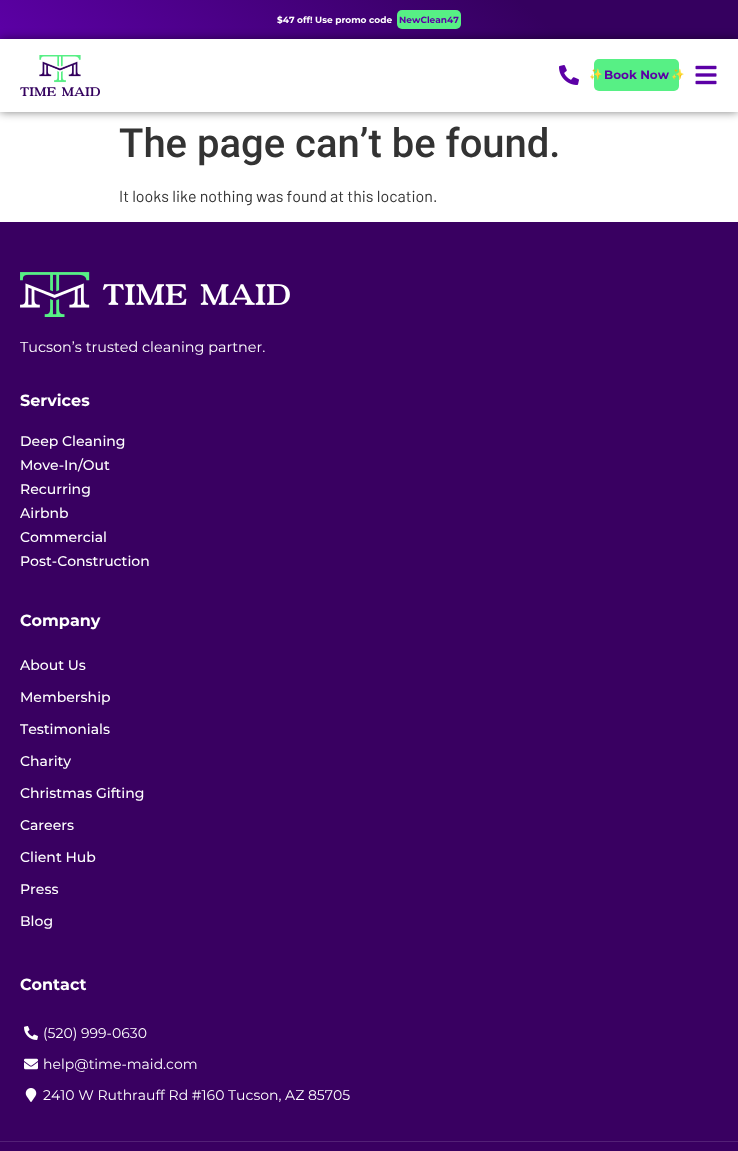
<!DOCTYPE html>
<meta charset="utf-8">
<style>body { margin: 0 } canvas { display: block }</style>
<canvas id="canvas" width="738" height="1151"></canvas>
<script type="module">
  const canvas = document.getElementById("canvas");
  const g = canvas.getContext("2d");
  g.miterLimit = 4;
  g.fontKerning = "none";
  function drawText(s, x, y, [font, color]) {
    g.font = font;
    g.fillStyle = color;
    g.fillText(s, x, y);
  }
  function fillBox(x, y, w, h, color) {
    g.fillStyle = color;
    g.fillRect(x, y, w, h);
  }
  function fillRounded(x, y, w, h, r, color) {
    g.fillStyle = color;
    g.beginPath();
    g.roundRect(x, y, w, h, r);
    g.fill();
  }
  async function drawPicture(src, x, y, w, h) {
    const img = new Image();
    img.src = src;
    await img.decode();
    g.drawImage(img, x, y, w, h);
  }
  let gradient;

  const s1 = ["bold 9px Montserrat", "#FFFFFF"];
  const s2 = ["bold 9px Montserrat", "#5C00A6"];
  const s3 = ["bold 11px Noto Color Emoji", "#9FF6B9"];
  const s4 = ["bold 12px Montserrat", "#5C00A6"];
  const s5 = ["bold 11px Noto Color Emoji", "#93F5B1"];
  const s6 = ["500 40px Roboto", "#333333"];
  const s7 = ["16px Barlow", "#333333"];
  const s8 = ["14.4px Montserrat", "#FFFFFF"];
  const s9 = ["bold 16px Montserrat", "#FFFFFF"];
  const s10 = ["500 14px Montserrat", "#FFFFFF"];
  const s11 = ["14px Montserrat", "#FFFFFF"];

  fillBox(0, 0, 738, 1151, "#FFFFFF");
  gradient = g.createLinearGradient(525, -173, 213, 212);
  gradient.addColorStop(0.28, "#35005F");
  gradient.addColorStop(1, "#5C00A6");
  g.fillStyle = gradient;
  g.fillRect(0, 0, 738, 39);
  drawText("$47 off! Use promo code", 277, 23, s1);
  fillRounded(397, 10, 64, 19, 5, "#57F085");
  drawText("NewClean47", 399, 23, s2);
  g.save();
  g.beginPath();
  g.moveTo(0, 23);
  g.lineTo(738, 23);
  g.lineTo(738, 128);
  g.lineTo(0, 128);
  g.closePath();
  g.moveTo(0, 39);
  g.lineTo(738, 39);
  g.lineTo(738, 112);
  g.lineTo(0, 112);
  g.closePath();
  g.clip("evenodd");
  g.fillStyle = "rgba(0, 0, 0, 0.5)";
  g.filter = "blur(5px)";
  g.beginPath();
  g.rect(0, 39, 738, 73);
  g.fill();
  g.filter = "none";
  g.restore();
  await drawPicture("pic1.png", 20, 55, 80, 41);
  await drawPicture("pic2.png", 559, 65, 20, 20);
  fillRounded(594, 59, 85, 32, 5, "#57F085");
  drawText("✨", 589, 78, s3);
  drawText("Book Now", 604, 79, s4);
  drawText("✨", 671, 78, s5);
  await drawPicture("pic3.png", 695, 65, 22, 20);
  drawText("The page can’t be found.", 119, 157, s6);
  drawText("It looks like nothing was found at this location.", 119, 202, s7);
  fillBox(0, 222, 738, 919, "#390061");
  await drawPicture("pic4.png", 20, 272, 270, 45);
  drawText("Tucson’s trusted cleaning partner.", 20, 352, s8);
  drawText("Services", 20, 406, s9);
  drawText("Deep Cleaning", 20, 446, s10);
  drawText("Move-In/Out", 20, 470, s10);
  drawText("Recurring", 20, 494, s10);
  drawText("Airbnb", 20, 518, s10);
  drawText("Commercial", 20, 542, s10);
  drawText("Post-Construction", 20, 566, s10);
  drawText("Company", 20, 626, s9);
  drawText("About Us", 20, 670, s10);
  drawText("Membership", 20, 702, s10);
  drawText("Testimonials", 20, 734, s10);
  drawText("Charity", 20, 766, s10);
  drawText("Christmas Gifting", 20, 798, s10);
  drawText("Careers", 20, 830, s10);
  drawText("Client Hub", 20, 862, s10);
  drawText("Press", 20, 894, s10);
  drawText("Blog", 20, 926, s10);
  drawText("Contact", 20, 990, s9);
  await drawPicture("pic5.png", 24, 1026, 14, 14);
  drawText("(520) 999-0630", 43, 1038, s11);
  await drawPicture("pic6.png", 24, 1058, 14, 12);
  drawText("help@time-maid.com", 43, 1069, s11);
  await drawPicture("pic7.png", 25, 1088, 12, 14);
  drawText("2410 W Ruthrauff Rd #160 Tucson, AZ 85705", 43, 1100, s11);
  fillBox(0, 1142, 738, 9, "#390061");
  fillBox(0, 1141, 738, 1, "#532176");
</script>
